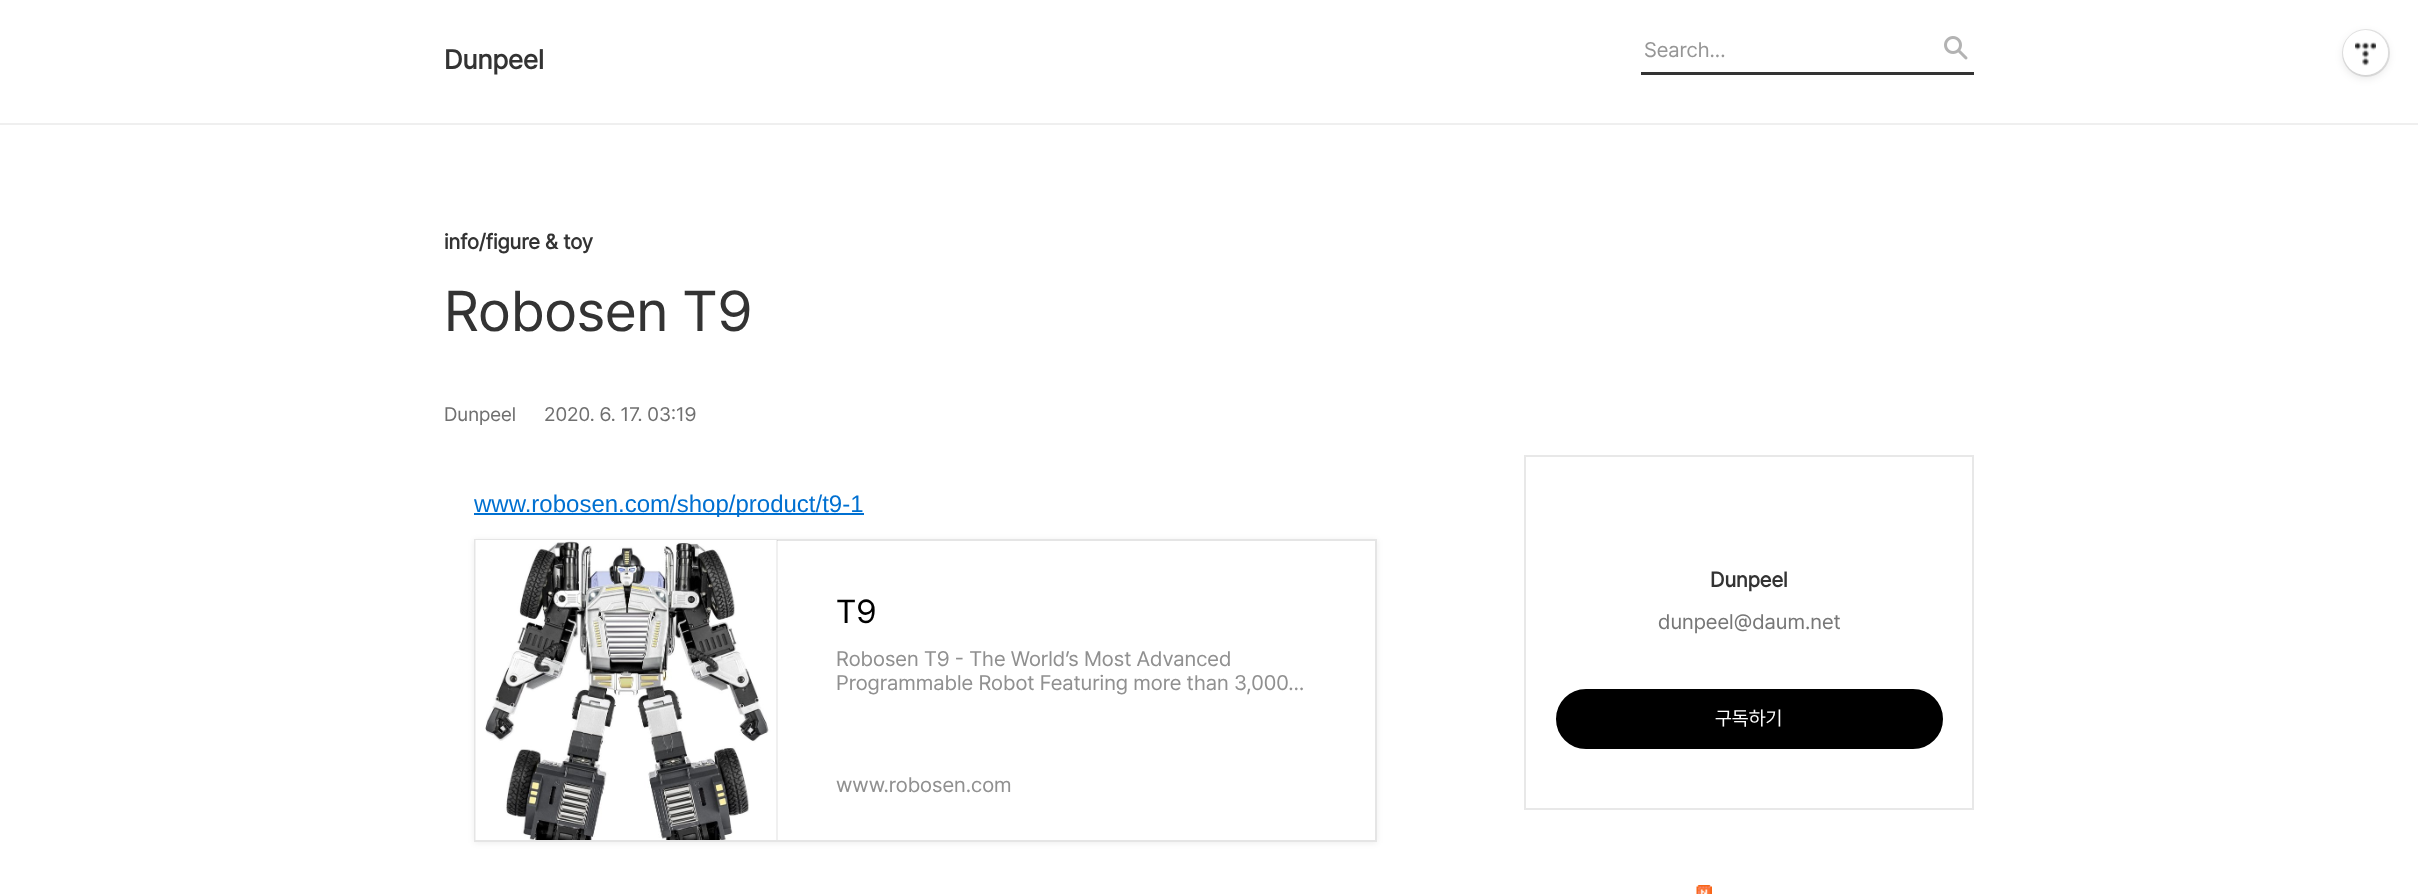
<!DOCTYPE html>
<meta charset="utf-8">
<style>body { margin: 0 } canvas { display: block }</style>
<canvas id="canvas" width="2418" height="894"></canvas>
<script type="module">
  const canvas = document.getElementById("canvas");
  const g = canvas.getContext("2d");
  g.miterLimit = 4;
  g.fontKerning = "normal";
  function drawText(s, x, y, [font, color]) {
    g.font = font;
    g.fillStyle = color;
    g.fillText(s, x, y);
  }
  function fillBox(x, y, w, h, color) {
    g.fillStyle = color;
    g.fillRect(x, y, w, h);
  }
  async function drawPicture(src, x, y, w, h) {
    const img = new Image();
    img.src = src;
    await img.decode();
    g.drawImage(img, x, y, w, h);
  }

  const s1 = ["bold 27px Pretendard", "#333333"];
  const s2 = ["21px Pretendard", "#969696"];
  const s3 = ["bold 21px Pretendard", "#333333"];
  const s4 = ["57px Pretendard", "#333333"];
  const s5 = ["19.5px Pretendard", "#707070"];
  const s6 = ["24px Liberation Sans", "#0070D1"];
  const s7 = ["33px Pretendard", "#000000"];
  const s8 = ["21px Pretendard", "#909090"];
  const s9 = ["21px Pretendard", "#777777"];
  const s10 = ["19.5px Pretendard", "#FFFFFF"];

  fillBox(0, 0, 2418, 894, "#FFFFFF");
  fillBox(0, 123, 2418, 2, "#EFEFEF");
  drawText("Dunpeel", 444, 69, s1);
  await drawPicture("pic1.png", 1944, 36, 24, 24);
  fillBox(1641, 72, 333, 3, "#333333");
  drawText("Search...", 1644, 57, s2);
  drawText("info/figure & toy", 444, 249, s3);
  drawText("Robosen T9", 444, 331, s4);
  drawText("Dunpeel", 444, 421, s5);
  drawText("2020. 6. 17. 03:19", 544, 421, s5);
  fillBox(474, 513, 390, 2, "#0070D1");
  drawText("www.robosen.com/shop/product/t9-1", 474, 512, s6);
  g.save();
  g.beginPath();
  g.moveTo(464, 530);
  g.lineTo(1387, 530);
  g.lineTo(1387, 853);
  g.lineTo(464, 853);
  g.closePath();
  g.moveTo(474, 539);
  g.lineTo(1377, 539);
  g.lineTo(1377, 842);
  g.lineTo(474, 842);
  g.closePath();
  g.clip("evenodd");
  g.fillStyle = "rgba(0, 0, 0, 0.07)";
  g.filter = "blur(3px)";
  g.beginPath();
  g.rect(474, 540, 903, 303);
  g.fill();
  g.filter = "none";
  g.restore();
  g.strokeStyle = "rgba(0, 0, 0, 0.1)";
  g.lineWidth = 2;
  g.strokeRect(475, 540, 901, 301);
  await drawPicture("pic2.png", 485, 540, 292, 300);
  fillBox(776, 540, 2, 300, "rgba(0, 0, 0, 0.06)");
  await drawPicture("pic3.png", 475, 540, 10, 300);
  drawText("T9", 836, 623, s7);
  drawText("Robosen T9 - The World’s Most Advanced", 836, 666, s8);
  drawText("Programmable Robot Featuring more than 3,000…", 836, 690, s8);
  drawText("www.robosen.com", 836, 792, s8);
  g.strokeStyle = "#E8E8E8";
  g.strokeRect(1525, 456, 448, 353);
  drawText("Dunpeel", 1710, 587, s3);
  drawText("dunpeel@daum.net", 1658, 629, s9);
  g.fillStyle = "#000000";
  g.beginPath();
  g.roundRect(1557, 690, 385, 58, 29);
  g.fill();
  g.strokeStyle = "#000000";
  g.stroke();
  drawText("구독하기", 1715, 725, s10);
  await drawPicture("pic4.png", 1696, 885, 16, 9);
  g.fillStyle = "rgba(0, 0, 0, 0.1)";
  g.filter = "blur(4px)";
  g.beginPath();
  g.roundRect(2343, 33, 45, 45, 22.5);
  g.fill();
  g.filter = "none";
  g.beginPath();
  g.arc(2366, 53, 23, 0, Math.PI * 2);
  g.strokeStyle = "rgba(0, 0, 0, 0.1)";
  g.stroke();
  g.fillStyle = "#FFFFFF";
  g.beginPath();
  g.arc(2365.5, 52.5, 22.5, 0, Math.PI * 2);
  g.fill();
  await drawPicture("pic5.png", 2355, 42, 21, 24);
</script>
